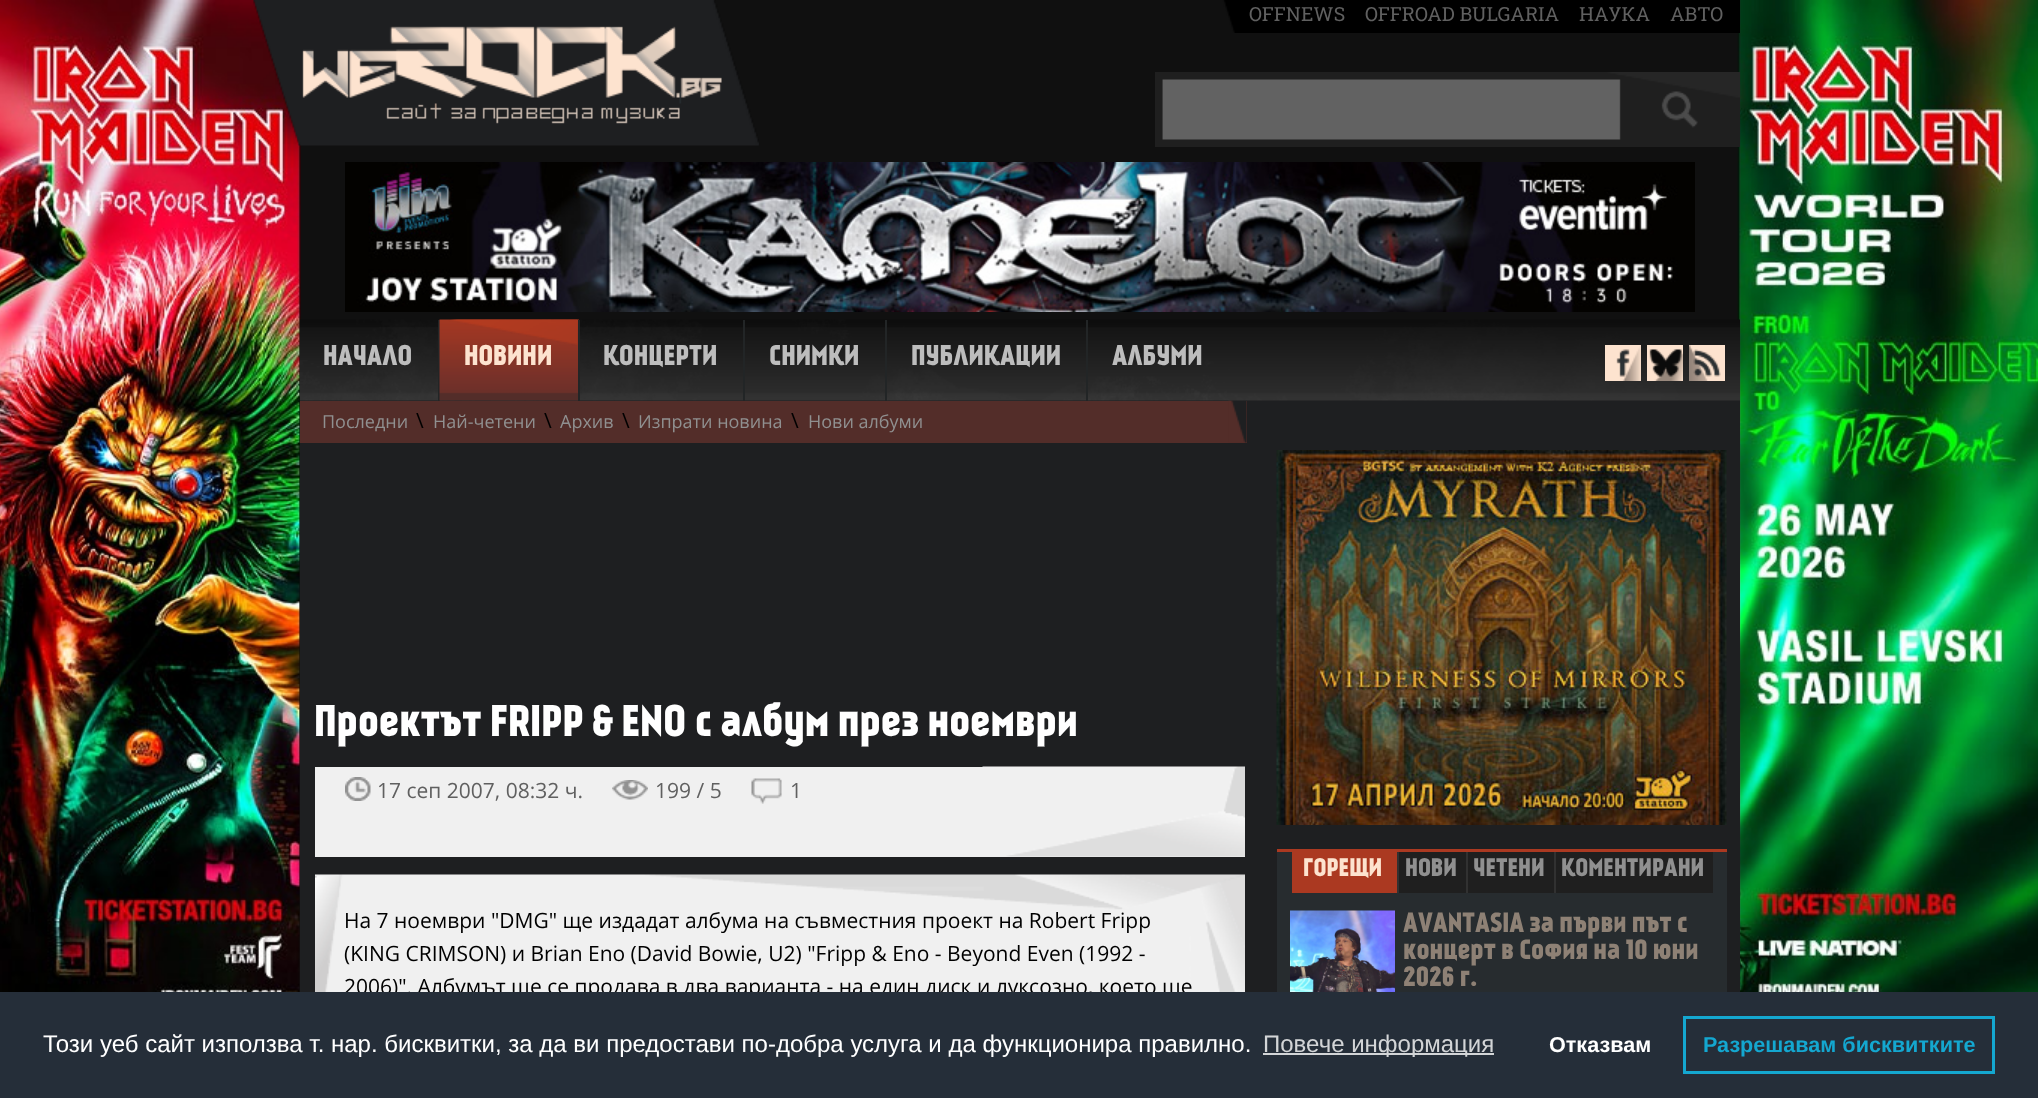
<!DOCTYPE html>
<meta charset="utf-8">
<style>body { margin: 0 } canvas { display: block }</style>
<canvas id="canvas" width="2038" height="1098"></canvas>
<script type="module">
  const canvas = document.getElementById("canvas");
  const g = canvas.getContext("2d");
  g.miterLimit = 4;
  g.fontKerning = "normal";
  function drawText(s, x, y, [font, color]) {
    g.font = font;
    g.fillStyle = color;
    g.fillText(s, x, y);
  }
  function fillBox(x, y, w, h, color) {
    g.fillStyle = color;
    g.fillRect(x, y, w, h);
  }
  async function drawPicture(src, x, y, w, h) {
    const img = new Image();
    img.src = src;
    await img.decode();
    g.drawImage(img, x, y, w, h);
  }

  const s1 = ["19.5px Roboto Slab", "#606060"];
  const s2 = ["27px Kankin", "#BDBDBD"];
  const s3 = ["27px Kankin", "#FDE3CF"];
  const s4 = ["18px Open Sans", "#909090"];
  const s5 = ["21px Open Sans", "#000000"];
  const s6 = ["42px Kankin", "#FFFFFF"];
  const s7 = ["21px Open Sans", "#606060"];
  const s8 = ["24px Kankin", "#FDE3CF"];
  const s9 = ["24px Kankin", "#909090"];
  const s10 = ["26.4px Kankin", "#8E8175"];
  const s11 = ["24px Liberation Sans", "#FFFFFF"];
  const s12 = ["24px Liberation Sans", "#D3D5D7"];
  const s13 = ["bold 21.6px Liberation Sans", "#FFFFFF"];
  const s14 = ["bold 21.6px Liberation Sans", "#14A7D0"];

  fillBox(0, 0, 2038, 1098, "#FFFFFF");
  await drawPicture("pic1.png", 0, 0, 2038, 992);
  await drawPicture("pic2.png", 253, 0, 506, 146);
  fillBox(1235, 0, 505, 33, "#000000");
  await drawPicture("pic3.png", 1211, 0, 24, 33);
  drawText("OFFNEWS", 1249, 21, s1);
  drawText("OFFROAD BULGARIA", 1365, 21, s1);
  drawText("НАУКА", 1579, 21, s1);
  drawText("АВТО", 1670, 21, s1);
  await drawPicture("pic4.png", 1155, 72, 585, 75);
  await drawPicture("pic5.png", 1661, 91, 37, 37);
  await drawPicture("pic6.png", 345, 162, 1350, 150);
  fillBox(300, 400, 1440, 592, "#1E1F21");
  fillBox(300, 401, 947, 42, "#532D29");
  await drawPicture("pic12.png", 1228, 400, 19, 43);
  await drawPicture("pic7.png", 300, 319, 1440, 82);
  fillBox(438, 320, 2, 81, "#222526");
  drawText("НАЧАЛО", 323, 365, s2);
  await drawPicture("pic8.png", 439, 319, 140, 82);
  fillBox(578, 320, 2, 81, "#222526");
  drawText("НОВИНИ", 464, 365, s3);
  fillBox(743, 320, 2, 81, "#222526");
  drawText("КОНЦЕРТИ", 603, 365, s2);
  fillBox(885, 320, 2, 81, "#222526");
  drawText("СНИМКИ", 769, 365, s2);
  fillBox(1086, 320, 2, 81, "#222526");
  drawText("ПУБЛИКАЦИИ", 911, 365, s2);
  drawText("АЛБУМИ", 1112, 365, s2);
  await drawPicture("pic9.png", 1605, 345, 36, 36);
  await drawPicture("pic10.png", 1647, 345, 36, 36);
  await drawPicture("pic11.png", 1689, 345, 36, 36);
  drawText("Последни", 322, 428, s4);
  drawText("\\", 416, 428, s5);
  drawText("Най-четени", 433, 428, s4);
  drawText("\\", 544, 428, s5);
  drawText("Архив", 560, 428, s4);
  drawText("\\", 622, 428, s5);
  drawText("Изпрати новина", 638, 428, s4);
  drawText("\\", 791, 428, s5);
  drawText("Нови албуми", 808, 428, s4);
  drawText("Проектът FRIPP & ENO с албум през ноември", 314, 736, s6);
  fillBox(315, 767, 930, 90, "#F0F0F0");
  await drawPicture("pic13.png", 982, 766, 263, 91);
  await drawPicture("pic14.png", 345, 777, 26, 24);
  drawText("17 сеп 2007, 08:32 ч.", 377, 798, s7);
  await drawPicture("pic15.png", 612, 780, 36, 20);
  drawText("199 / 5", 655, 798, s7);
  await drawPicture("pic16.png", 751, 778, 31, 26);
  drawText("1", 790, 798, s7);
  await drawPicture("pic17.png", 315, 874, 930, 118);
  drawText("На 7 ноември \"DMG\" ще издадат албума на съвместния проект на Robert Fripp", 344, 928, s5);
  drawText("(KING CRIMSON) и Brian Eno (David Bowie, U2) \"Fripp & Eno - Beyond Even (1992 -", 344, 961, s5);
  drawText("2006)\". Албумът ще се продава в два варианта - на един диск и луксозно, което ще", 344, 994, s5);
  await drawPicture("pic18.png", 1276, 450, 451, 375);
  fillBox(1277, 852, 450, 140, "#272C2F");
  fillBox(1277, 849, 450, 3, "#AB3921");
  fillBox(1292, 852, 105, 41, "#AB3921");
  drawText("ГОРЕЩИ", 1303, 876, s8);
  fillBox(1399, 852, 67, 41, "#1F1F1F");
  fillBox(1397, 852, 2, 41, "#313131");
  drawText("НОВИ", 1405, 876, s9);
  fillBox(1468, 852, 86, 41, "#1F1F1F");
  fillBox(1466, 852, 2, 41, "#313131");
  drawText("ЧЕТЕНИ", 1473, 876, s9);
  fillBox(1556, 852, 157, 41, "#1F1F1F");
  fillBox(1554, 852, 2, 41, "#313131");
  drawText("КОМЕНТИРАНИ", 1561, 876, s9);
  await drawPicture("pic19.png", 1290, 910, 105, 82);
  drawText("AVANTASIA за първи път с", 1403, 932, s10);
  drawText("концерт в София на 10 юни", 1403, 959, s10);
  drawText("2026 г.", 1403, 986, s10);
  fillBox(0, 992, 2038, 106, "#252E39");
  drawText("Този уеб сайт използва т. нар. бисквитки, за да ви предостави по-добра услуга и да функционира правилно.", 43, 1052, s11);
  fillBox(1263, 1053, 231, 2, "#D3D5D7");
  drawText("Повече информация", 1263, 1052, s12);
  drawText("Отказвам", 1549, 1052, s13);
  g.strokeStyle = "#14A7D0";
  g.lineWidth = 3;
  g.strokeRect(1684.5, 1017.5, 309, 55);
  drawText("Разрешавам бисквитките", 1703, 1052, s14);
</script>
